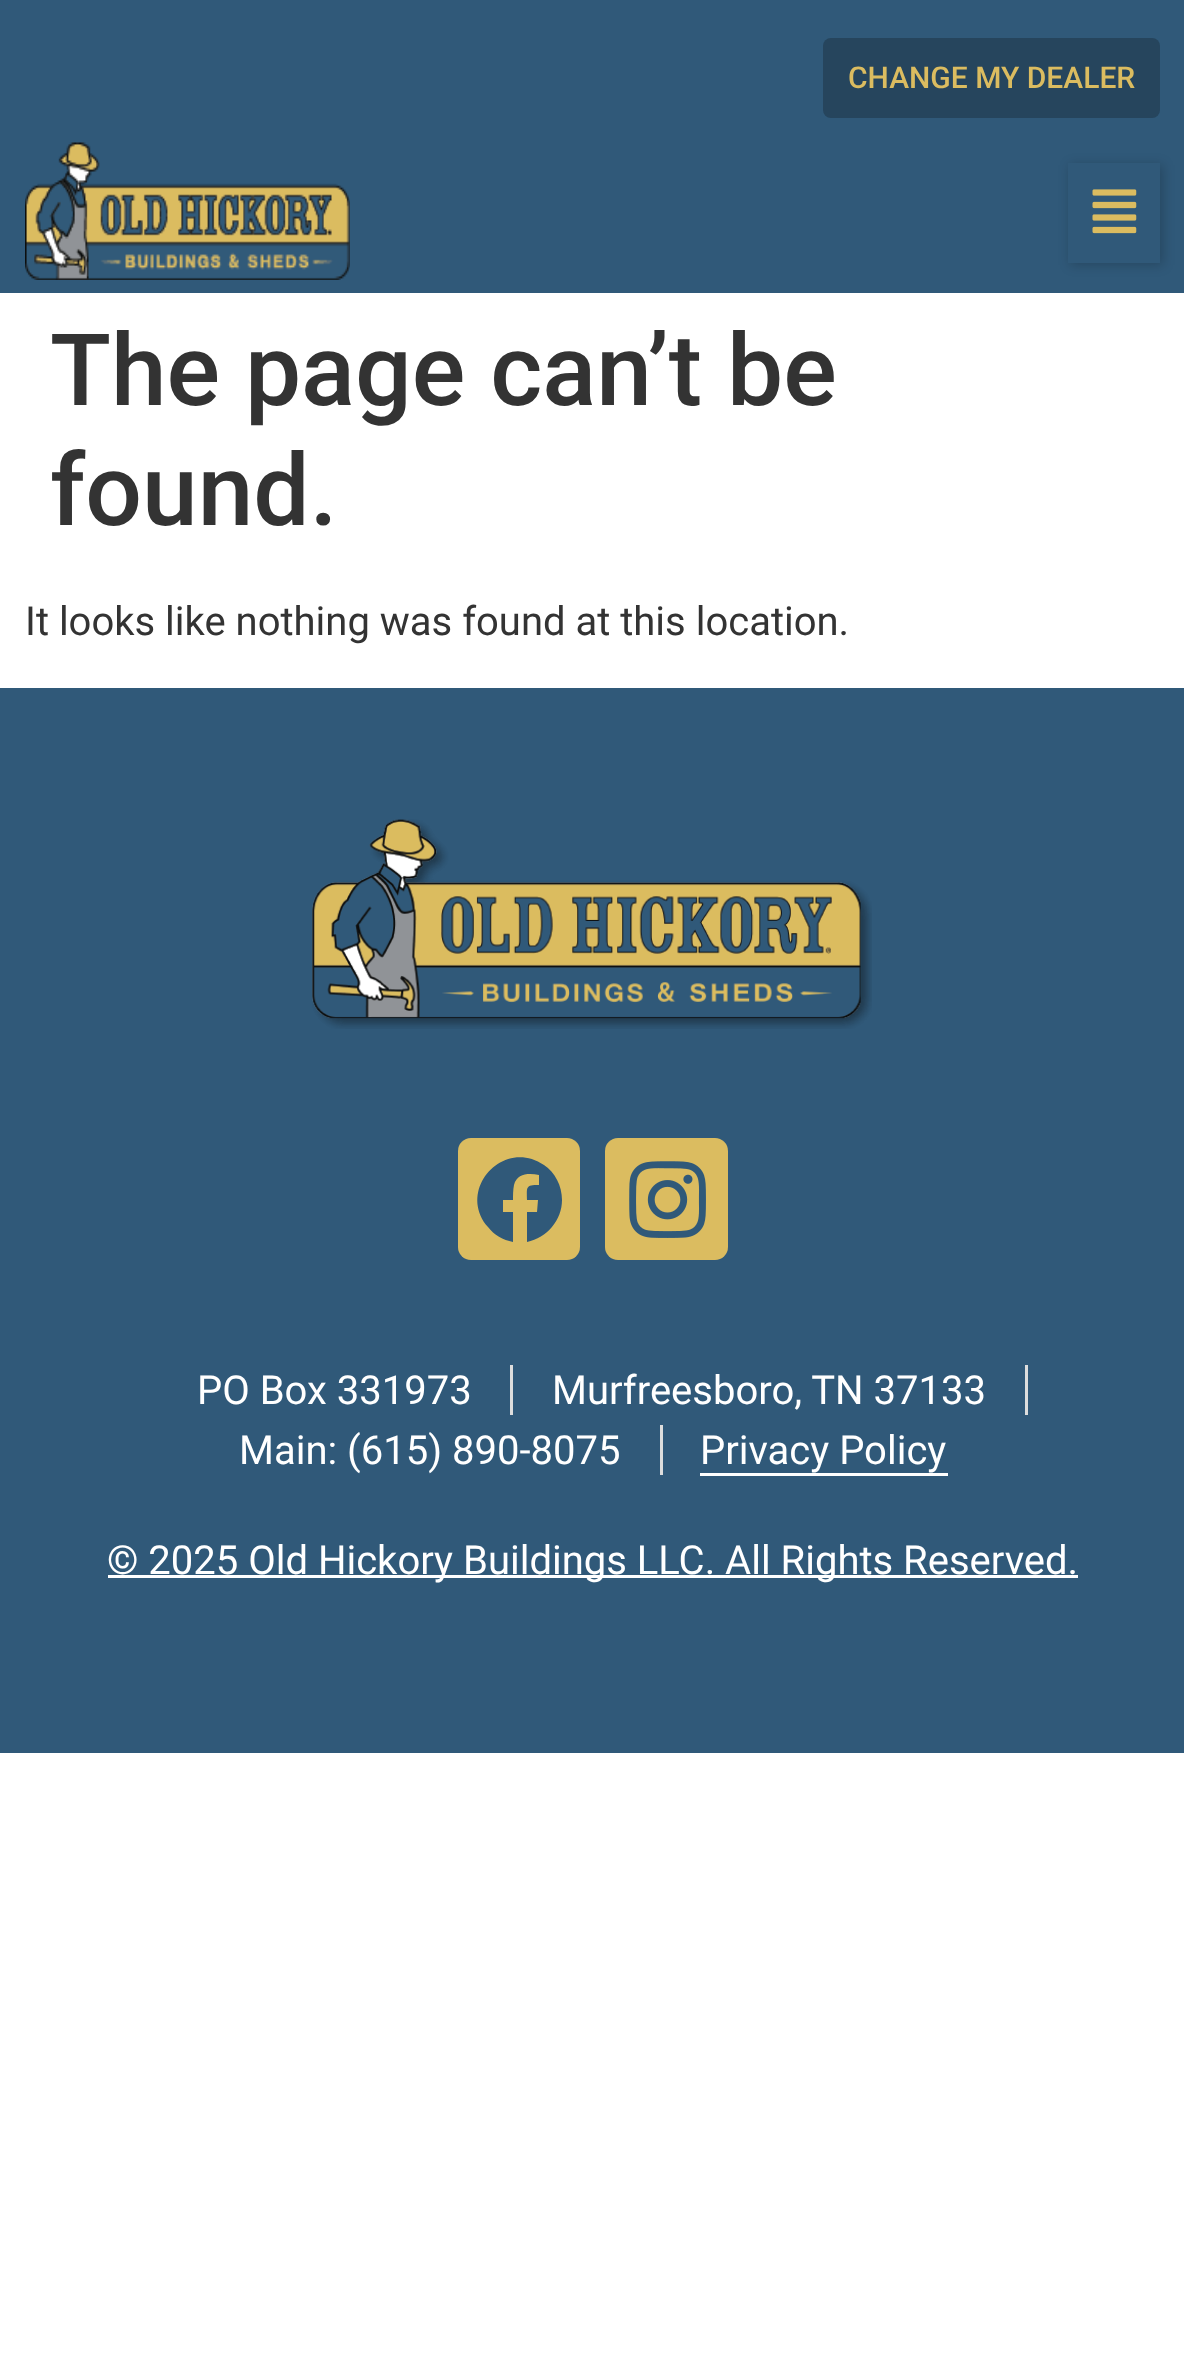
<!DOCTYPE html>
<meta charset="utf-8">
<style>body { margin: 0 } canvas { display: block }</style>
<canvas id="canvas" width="1184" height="2368"></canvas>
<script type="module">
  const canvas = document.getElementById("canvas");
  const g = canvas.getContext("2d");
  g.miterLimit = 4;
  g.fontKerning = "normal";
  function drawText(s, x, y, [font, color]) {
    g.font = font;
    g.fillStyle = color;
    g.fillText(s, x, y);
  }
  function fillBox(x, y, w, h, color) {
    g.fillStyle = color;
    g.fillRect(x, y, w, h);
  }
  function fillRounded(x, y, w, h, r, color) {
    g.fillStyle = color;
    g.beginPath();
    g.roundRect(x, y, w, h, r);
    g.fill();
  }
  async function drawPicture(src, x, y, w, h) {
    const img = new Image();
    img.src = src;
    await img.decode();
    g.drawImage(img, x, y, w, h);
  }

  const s1 = ["500 30px Roboto", "#DBBC60"];
  const s2 = ["500 100px Roboto", "#333333"];
  const s3 = ["40px Roboto", "#333333"];
  const s4 = ["40px Roboto", "#FFFFFF"];

  fillBox(0, 0, 1184, 2368, "#FFFFFF");
  fillBox(0, 0, 1184, 293, "#305979");
  fillRounded(823, 38, 337, 80, 8, "#26455D");
  drawText("CHANGE MY DEALER", 848, 88, s1);
  await drawPicture("pic1.png", 25, 142, 325, 138);
  g.fillStyle = "rgba(0, 0, 0, 0.2)";
  g.filter = "blur(6px)";
  g.beginPath();
  g.rect(1070, 165, 93, 100);
  g.fill();
  g.filter = "none";
  fillBox(1068, 163, 92, 100, "#305979");
  await drawPicture("pic2.png", 1092, 189, 45, 45);
  drawText("The page can’t be", 50, 405, s2);
  drawText("found.", 50, 525, s2);
  drawText("It looks like nothing was found at this location.", 25, 635, s3);
  fillBox(0, 688, 1184, 1065, "#305979");
  await drawPicture("pic3.png", 312, 819, 560, 210);
  fillRounded(458, 1138, 122, 122, 13, "#DBBC60");
  g.fillStyle = "#305979";
  g.beginPath();
  g.moveTo(562, 1200);
  g.bezierCurveTo(562, 1220, 547, 1238, 527, 1242);
  g.lineTo(527, 1212);
  g.lineTo(537, 1212);
  g.lineTo(538, 1200);
  g.lineTo(527, 1200);
  g.bezierCurveTo(527, 1187, 525, 1185, 539, 1185);
  g.lineTo(539, 1175);
  g.bezierCurveTo(529, 1173, 517, 1173, 514, 1185);
  g.bezierCurveTo(513, 1190, 513, 1195, 513, 1200);
  g.lineTo(503, 1200);
  g.lineTo(503, 1212);
  g.lineTo(513, 1212);
  g.lineTo(513, 1242);
  g.bezierCurveTo(503, 1240, 494, 1235, 488, 1227);
  g.bezierCurveTo(456, 1190, 503, 1137, 544, 1165);
  g.bezierCurveTo(555, 1172, 562, 1186, 562, 1200);
  g.closePath();
  g.fill();
  fillRounded(605, 1138, 123, 122, 13, "#DBBC60");
  await drawPicture("pic4.png", 629, 1161, 77, 77);
  drawText("PO Box 331973", 197, 1404, s4);
  fillBox(510, 1365, 3, 50, "#DDDDDD");
  drawText("Murfreesboro, TN 37133", 552, 1404, s4);
  fillBox(1025, 1365, 3, 50, "#DDDDDD");
  drawText("Main: (615) 890-8075", 239, 1464, s4);
  fillBox(660, 1425, 3, 50, "#DDDDDD");
  drawText("Privacy Policy", 700, 1464, s4);
  fillBox(700, 1473, 248, 3, "#FFFFFF");
  fillBox(108, 1575, 970, 3, "#FFFFFF");
  drawText("© 2025 Old Hickory Buildings LLC. All Rights Reserved.", 107, 1574, s4);
</script>
